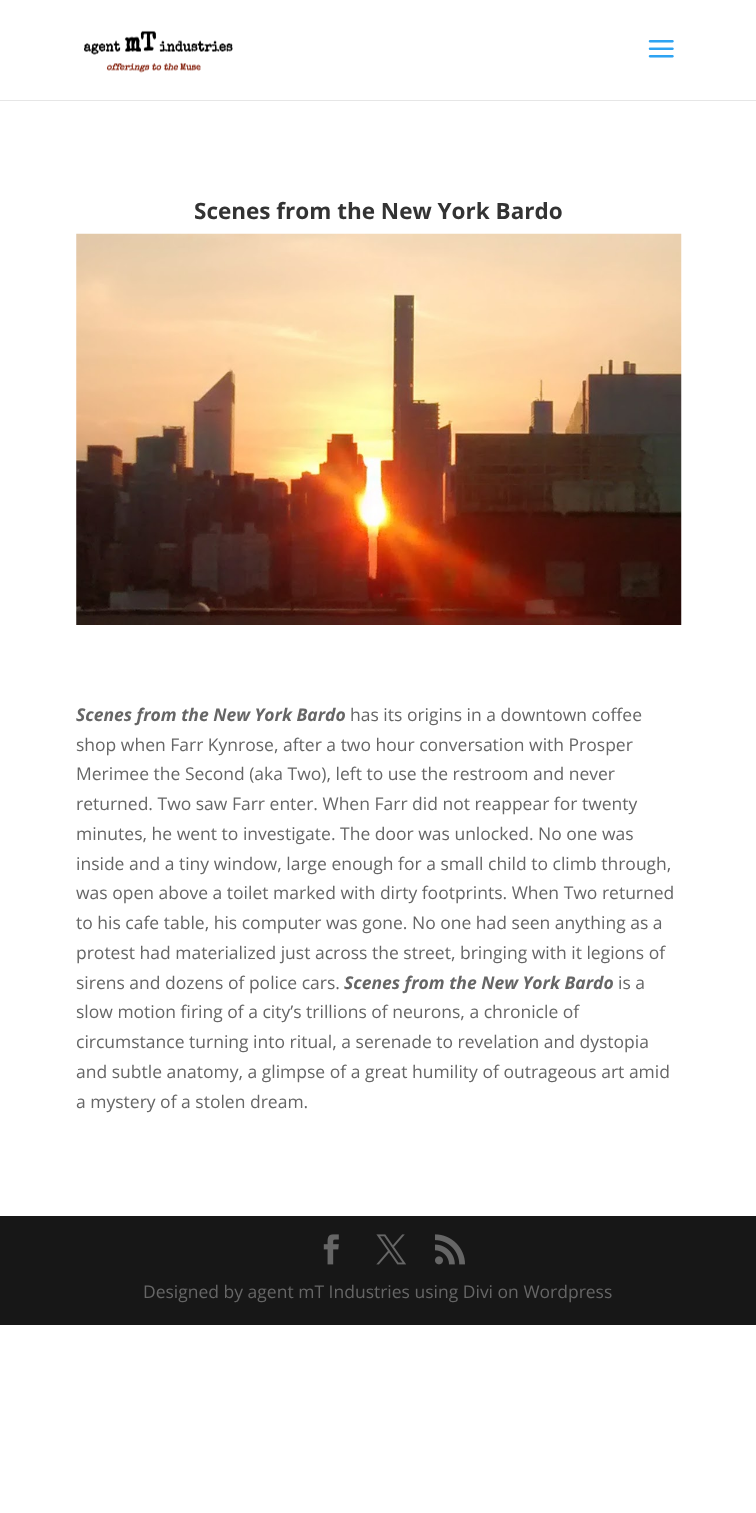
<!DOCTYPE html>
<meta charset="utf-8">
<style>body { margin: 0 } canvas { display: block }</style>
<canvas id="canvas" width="756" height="1513"></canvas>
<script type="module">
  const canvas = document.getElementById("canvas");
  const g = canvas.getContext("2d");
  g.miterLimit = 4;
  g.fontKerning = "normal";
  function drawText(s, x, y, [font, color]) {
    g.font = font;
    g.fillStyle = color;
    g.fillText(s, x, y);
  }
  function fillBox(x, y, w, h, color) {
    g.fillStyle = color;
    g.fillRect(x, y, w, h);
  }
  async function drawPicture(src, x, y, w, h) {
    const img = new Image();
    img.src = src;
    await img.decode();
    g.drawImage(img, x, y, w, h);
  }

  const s1 = ["bold 22.5px Open Sans", "#333333"];
  const s2 = ["italic bold 17.5px Open Sans", "#666666"];
  const s3 = ["17.5px Open Sans", "#666666"];

  fillBox(0, 0, 756, 1513, "#FFFFFF");
  fillBox(0, 100, 756, 1, "#E6E6E6");
  await drawPicture("pic1.png", 84, 30, 149, 43);
  await drawPicture("pic2.png", 648, 40, 26, 18);
  drawText("Scenes from the New York Bardo", 194, 219, s1);
  await drawPicture("pic3.png", 76, 233, 606, 392);
  drawText("Scenes from the New York Bardo", 76, 721, s2);
  drawText("has its origins in a downtown coffee", 350, 721, s3);
  drawText("shop when Farr Kynrose, after a two hour conversation with Prosper", 76, 751, s3);
  drawText("Merimee the Second (aka Two), left to use the restroom and never", 76, 780, s3);
  drawText("returned. Two saw Farr enter. When Farr did not reappear for twenty", 76, 810, s3);
  drawText("minutes, he went to investigate. The door was unlocked. No one was", 76, 840, s3);
  drawText("inside and a tiny window, large enough for a small child to climb through,", 76, 870, s3);
  drawText("was open above a toilet marked with dirty footprints. When Two returned", 76, 899, s3);
  drawText("to his cafe table, his computer was gone. No one had seen anything as a", 76, 929, s3);
  drawText("protest had materialized just across the street, bringing with it legions of", 76, 959, s3);
  drawText("sirens and dozens of police cars.", 76, 989, s3);
  drawText("Scenes from the New York Bardo", 344, 989, s2);
  drawText("is a", 618, 989, s3);
  drawText("slow motion firing of a city’s trillions of neurons, a chronicle of", 76, 1018, s3);
  drawText("circumstance turning into ritual, a serenade to revelation and dystopia", 76, 1048, s3);
  drawText("and subtle anatomy, a glimpse of a great humility of outrageous art amid", 76, 1078, s3);
  drawText("a mystery of a stolen dream.", 76, 1108, s3);
  fillBox(0, 1216, 756, 109, "#171717");
  await drawPicture("pic4.png", 323, 1234, 16, 31);
  await drawPicture("pic5.png", 376, 1234, 30, 31);
  await drawPicture("pic6.png", 435, 1234, 30, 31);
  drawText("Designed by agent mT Industries using Divi on Wordpress", 143, 1298, s3);
</script>
